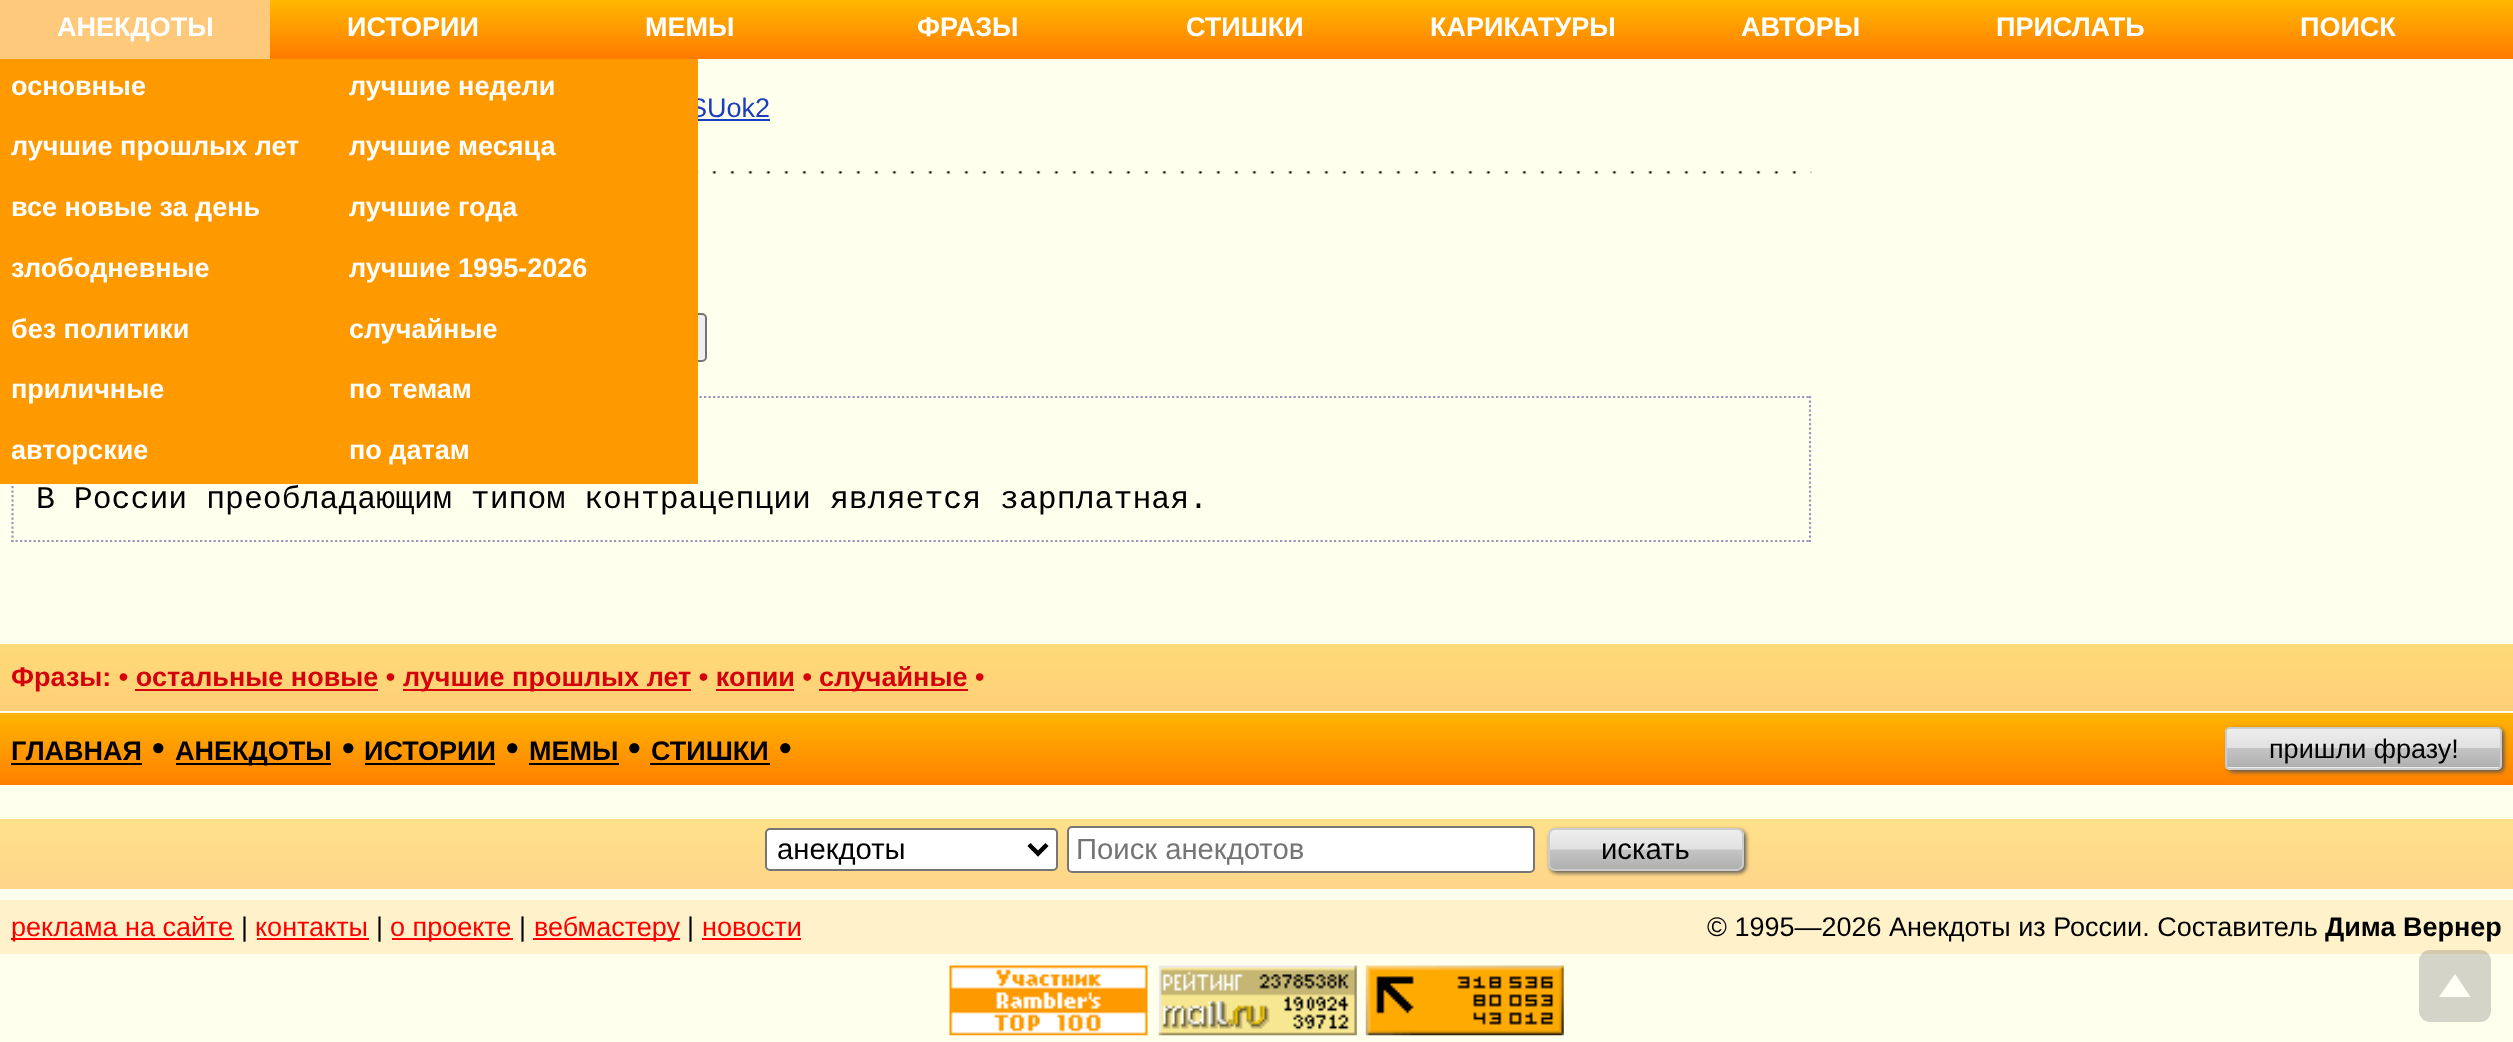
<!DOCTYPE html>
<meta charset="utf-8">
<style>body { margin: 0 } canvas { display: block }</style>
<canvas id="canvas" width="2513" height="1042"></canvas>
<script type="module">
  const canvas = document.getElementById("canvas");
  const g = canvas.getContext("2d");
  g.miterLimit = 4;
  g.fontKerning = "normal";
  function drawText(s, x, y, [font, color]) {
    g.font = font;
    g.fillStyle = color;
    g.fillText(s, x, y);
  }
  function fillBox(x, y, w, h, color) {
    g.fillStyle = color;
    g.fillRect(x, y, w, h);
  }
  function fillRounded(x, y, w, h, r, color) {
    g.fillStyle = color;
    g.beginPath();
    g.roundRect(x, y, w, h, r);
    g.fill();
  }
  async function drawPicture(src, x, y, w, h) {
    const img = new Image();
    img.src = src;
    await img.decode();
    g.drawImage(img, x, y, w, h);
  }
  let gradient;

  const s1 = ["bold 27px Liberation Sans", "#FFFFFF"];
  const s2 = ["27px Liberation Sans", "#1A3DC1"];
  const s3 = ["31.5px Liberation Mono", "#000000"];
  const s4 = ["bold 27px Liberation Sans", "#D4020D"];
  const s5 = ["bold 27px Liberation Sans", "#000000"];
  const s6 = ["bold 36px Liberation Sans", "#000000"];
  const s7 = ["27px Liberation Sans", "#000000"];
  const s8 = ["29.25px Liberation Sans", "#000000"];
  const s9 = ["29.25px Liberation Sans", "#757575"];
  const s10 = ["27px Liberation Sans", "#FF0000"];

  fillBox(0, 0, 2513, 1042, "#FFFFEE");
  gradient = g.createLinearGradient(1257, 0, 1257, 59);
  gradient.addColorStop(0, "#FFB800");
  gradient.addColorStop(1, "#FF7A00");
  g.fillStyle = gradient;
  g.fillRect(270, 0, 2243, 59);
  fillBox(0, 0, 270, 59, "#FFC97C");
  drawText("АНЕКДОТЫ", 57, 36, s1);
  g.beginPath();
  g.moveTo(11, 397);
  g.lineTo(1811, 397);
  g.strokeStyle = "#9999BB";
  g.lineWidth = 2.2;
  g.setLineDash([2.25, 2.25]);
  g.stroke();
  g.beginPath();
  g.moveTo(1810, 396);
  g.lineTo(1810, 542);
  g.stroke();
  g.beginPath();
  g.moveTo(11, 541);
  g.lineTo(1811, 541);
  g.stroke();
  g.beginPath();
  g.moveTo(12.5, 396);
  g.lineTo(12.5, 542);
  g.stroke();
  fillBox(0, 59, 338, 425, "#FF9900");
  drawText("основные", 11, 95, s1);
  drawText("лучшие прошлых лет", 11, 155, s1);
  drawText("все новые за день", 11, 216, s1);
  drawText("злободневные", 11, 277, s1);
  drawText("без политики", 11, 338, s1);
  drawText("приличные", 11, 398, s1);
  drawText("авторские", 11, 459, s1);
  drawText("SUok2", 689, 117, s2);
  g.fillStyle = "#EFEFEF";
  g.beginPath();
  g.roundRect(449, 314, 257, 47, 4);
  g.fill();
  g.strokeStyle = "#767676";
  g.lineWidth = 2;
  g.setLineDash([]);
  g.stroke();
  fillBox(338, 59, 360, 425, "#FF9900");
  drawText("лучшие недели", 349, 95, s1);
  drawText("лучшие месяца", 349, 155, s1);
  drawText("лучшие года", 349, 216, s1);
  drawText("лучшие 1995-2026", 349, 277, s1);
  drawText("случайные", 349, 338, s1);
  drawText("по темам", 349, 398, s1);
  drawText("по датам", 349, 459, s1);
  drawText("ИСТОРИИ", 347, 36, s1);
  drawText("МЕМЫ", 645, 36, s1);
  drawText("ФРАЗЫ", 917, 36, s1);
  drawText("СТИШКИ", 1186, 36, s1);
  drawText("КАРИКАТУРЫ", 1430, 36, s1);
  drawText("АВТОРЫ", 1741, 36, s1);
  drawText("ПРИСЛАТЬ", 1996, 36, s1);
  drawText("ПОИСК", 2300, 36, s1);
  await drawPicture("pic1.png", 698, 171, 1114, 3);
  fillBox(698, 119, 72, 2, "#1A3DC1");
  drawText("В России преобладающим типом контрацепции является зарплатная.", 36, 508, s3);
  gradient = g.createLinearGradient(1257, 643, 1257, 711);
  gradient.addColorStop(0, "#FFDB77");
  gradient.addColorStop(1, "#FFCF77");
  g.fillStyle = gradient;
  g.fillRect(0, 644, 2513, 67);
  drawText("Фразы: • остальные новые •", 11, 686, s4);
  fillBox(403, 689, 288, 2, "#D4020D");
  drawText("лучшие прошлых лет • копии •", 403, 686, s4);
  fillBox(819, 689, 149, 2, "#D4020D");
  drawText("случайные •", 819, 686, s4);
  fillBox(135, 689, 243, 2, "#D4020D");
  fillBox(716, 689, 78, 2, "#D4020D");
  gradient = g.createLinearGradient(1257, 713, 1257, 785);
  gradient.addColorStop(0, "#FFB500");
  gradient.addColorStop(1, "#FF7F00");
  g.fillStyle = gradient;
  g.fillRect(0, 713, 2513, 72);
  drawText("ГЛАВНАЯ", 11, 760, s5);
  fillBox(11, 763, 131, 2, "#000000");
  drawText("•", 152, 760, s6);
  fillBox(176, 763, 155, 2, "#000000");
  drawText("АНЕКДОТЫ", 175, 760, s5);
  drawText("•", 342, 760, s6);
  drawText("ИСТОРИИ", 364, 760, s5);
  fillBox(365, 763, 130, 2, "#000000");
  drawText("•", 506, 760, s6);
  drawText("МЕМЫ", 529, 760, s5);
  fillBox(529, 763, 90, 2, "#000000");
  drawText("•", 628, 760, s6);
  drawText("СТИШКИ", 651, 760, s5);
  fillBox(650, 763, 120, 2, "#000000");
  drawText("•", 779, 760, s6);
  g.fillStyle = "#555555";
  g.filter = "blur(2px)";
  g.beginPath();
  g.roundRect(2228, 729, 276, 43, 5);
  g.fill();
  g.filter = "none";
  g.save();
  g.beginPath();
  g.roundRect(2225, 727, 277, 43, 5);
  g.clip();
  gradient = g.createLinearGradient(2364, 729, 2364, 767);
  gradient.addColorStop(0, "#EEEEEE");
  gradient.addColorStop(0.49, "#E1E1E1");
  gradient.addColorStop(0.51, "#C4C4C4");
  gradient.addColorStop(1, "#B0B0B0");
  g.fillStyle = gradient;
  g.fillRect(2225, 729, 277, 38);
  gradient = g.createLinearGradient(2364, 767, 2364, 806);
  gradient.addColorStop(0, "#EEEEEE");
  gradient.addColorStop(0.49, "#E1E1E1");
  gradient.addColorStop(0.51, "#C4C4C4");
  gradient.addColorStop(1, "#B0B0B0");
  g.fillStyle = gradient;
  g.fillRect(2225, 767, 277, 3);
  g.restore();
  g.beginPath();
  g.roundRect(2226, 728, 275, 41, 4);
  g.strokeStyle = "#CCCCCC";
  g.stroke();
  drawText("пришли фразу!", 2269, 758, s7);
  gradient = g.createLinearGradient(1257, 819, 1257, 889);
  gradient.addColorStop(0, "#FFE18A");
  gradient.addColorStop(1, "#FFD58A");
  g.fillStyle = gradient;
  g.fillRect(0, 819, 2513, 70);
  g.fillStyle = "#FFFFFF";
  g.beginPath();
  g.roundRect(766, 829, 291, 41, 4);
  g.fill();
  g.strokeStyle = "#767676";
  g.stroke();
  g.beginPath();
  g.moveTo(1029, 844.5);
  g.lineTo(1038, 853.5);
  g.lineTo(1047, 844.5);
  g.strokeStyle = "#000000";
  g.lineWidth = 4.5;
  g.stroke();
  drawText("анекдоты", 777, 859, s8);
  g.fillStyle = "#FFFFFF";
  g.beginPath();
  g.roundRect(1068, 827, 466, 45, 4);
  g.fill();
  g.strokeStyle = "#767676";
  g.lineWidth = 2;
  g.stroke();
  drawText("Поиск анекдотов", 1076, 859, s9);
  g.fillStyle = "#555555";
  g.filter = "blur(2px)";
  g.beginPath();
  g.roundRect(1550, 830, 196, 43, 7);
  g.fill();
  g.filter = "none";
  g.save();
  g.beginPath();
  g.roundRect(1548, 828, 196, 43, 7);
  g.clip();
  gradient = g.createLinearGradient(1646, 830, 1646, 869);
  gradient.addColorStop(0, "#EEEEEE");
  gradient.addColorStop(0.49, "#E1E1E1");
  gradient.addColorStop(0.51, "#C4C4C4");
  gradient.addColorStop(1, "#B0B0B0");
  g.fillStyle = gradient;
  g.fillRect(1548, 830, 196, 39);
  g.restore();
  g.beginPath();
  g.roundRect(1549, 829, 194, 41, 6);
  g.strokeStyle = "#CCCCCC";
  g.stroke();
  drawText("искать", 1601, 859, s8);
  fillBox(0, 900, 2513, 54, "#FFF2CA");
  fillBox(11, 938, 223, 2, "#FF0000");
  drawText("реклама на сайте", 11, 936, s10);
  drawText("|", 241, 936, s7);
  drawText("контакты", 255, 936, s10);
  fillBox(257, 938, 112, 2, "#FF0000");
  drawText("|", 376, 936, s7);
  fillBox(392, 938, 121, 2, "#FF0000");
  drawText("о проекте", 390, 936, s10);
  drawText("|", 519, 936, s7);
  fillBox(533, 938, 147, 2, "#FF0000");
  drawText("вебмастеру", 534, 936, s10);
  drawText("|", 687, 936, s7);
  drawText("новости", 702, 936, s10);
  fillBox(702, 938, 99, 2, "#FF0000");
  drawText("© 1995—2026 Анекдоты из России. Составитель", 1707, 936, s7);
  drawText("Дима Вернер", 2325, 936, s5);
  await drawPicture("pic2.png", 949, 965, 199, 71);
  await drawPicture("pic3.png", 1158, 965, 199, 71);
  await drawPicture("pic4.png", 1365, 965, 199, 71);
  fillRounded(2419, 950, 72, 72, 11, "rgba(41, 42, 50, 0.2)");
  g.fillStyle = "#FFFFF5";
  g.beginPath();
  g.moveTo(2470.5, 997);
  g.lineTo(2439, 997);
  g.lineTo(2455, 974);
  g.closePath();
  g.fill();
</script>
